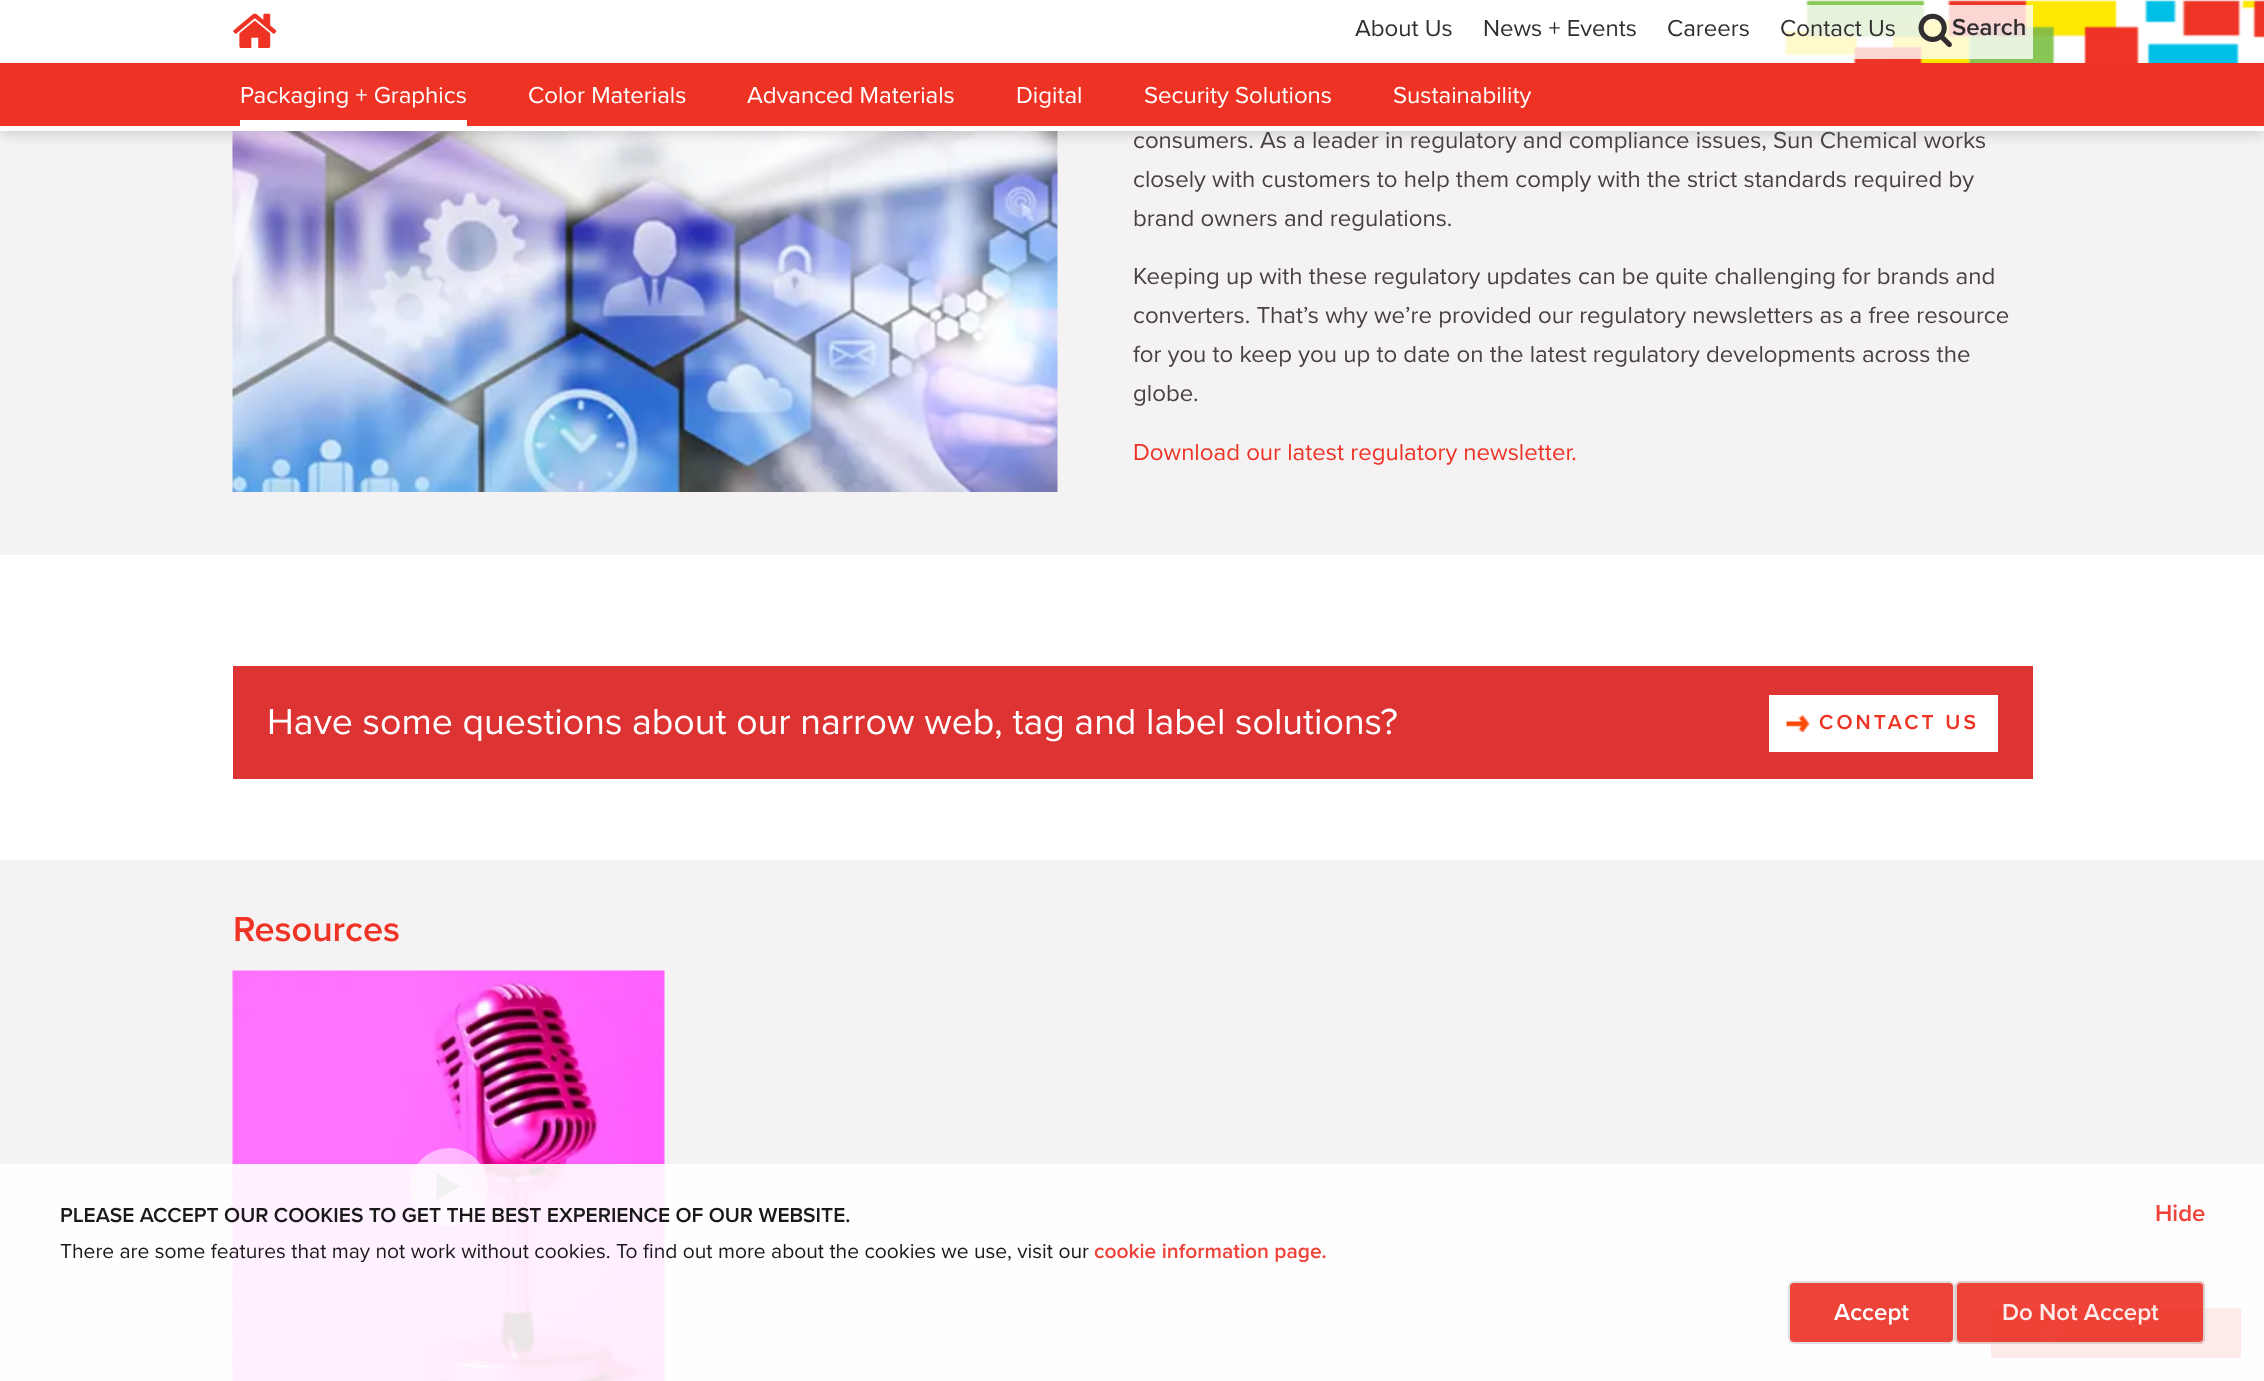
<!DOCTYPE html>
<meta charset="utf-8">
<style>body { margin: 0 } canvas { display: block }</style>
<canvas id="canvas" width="2264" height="1381"></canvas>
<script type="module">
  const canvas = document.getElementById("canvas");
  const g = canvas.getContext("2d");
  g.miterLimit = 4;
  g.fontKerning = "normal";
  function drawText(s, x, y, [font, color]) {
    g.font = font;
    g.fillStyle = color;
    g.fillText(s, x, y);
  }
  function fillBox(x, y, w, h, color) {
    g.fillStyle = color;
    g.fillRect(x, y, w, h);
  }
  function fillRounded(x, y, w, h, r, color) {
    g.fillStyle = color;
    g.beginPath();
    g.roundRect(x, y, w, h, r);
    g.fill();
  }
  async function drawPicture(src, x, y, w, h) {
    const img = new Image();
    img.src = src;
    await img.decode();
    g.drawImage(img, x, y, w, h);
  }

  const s1 = ["24px Proxima Nova", "#322E2F"];
  const s2 = ["600 24px Proxima Nova", "#322E2F"];
  const s3 = ["24px Proxima Nova", "#FFFFFF"];
  const s4 = ["24px Proxima Nova", "#464144"];
  const s5 = ["24px Proxima Nova", "#EE3224"];
  const s6 = ["37.5px Proxima Nova", "#FFFFFF"];
  const s7 = ["600 21px Proxima Nova", "#EE3224"];
  const s8 = ["600 36px Proxima Nova", "#EE3224"];
  const s9 = ["600 21px Proxima Nova", "#191919"];
  const s10 = ["600 24px Proxima Nova", "#EE4339"];
  const s11 = ["21px Proxima Nova", "#191919"];
  const s12 = ["600 21px Proxima Nova", "#EE4339"];
  const s13 = ["600 24px Proxima Nova", "#FFFFFF"];
  const s14 = ["600 24px Proxima Nova", "#FDECEB"];

  fillBox(0, 0, 2264, 1381, "#FFFFFF");
  fillBox(0, 131, 2264, 424, "#F4F2F3");
  await drawPicture("pic4.png", 232, 131, 826, 361);
  g.fillStyle = "rgba(0, 0, 0, 0.2)";
  g.filter = "blur(7.5px)";
  g.beginPath();
  g.rect(0, 2, 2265, 130);
  g.fill();
  g.filter = "none";
  fillBox(0, 0, 2264, 63, "#FFFFFF");
  await drawPicture("pic1.png", 1784, 0, 480, 63);
  await drawPicture("pic2.png", 233, 13, 44, 35);
  fillBox(1784, 5, 249, 54, "rgba(255, 255, 255, 0.8)");
  drawText("About Us", 1355, 36, s1);
  drawText("News + Events", 1483, 36, s1);
  drawText("Careers", 1667, 36, s1);
  drawText("Contact Us", 1780, 36, s1);
  await drawPicture("pic3.png", 1918, 13, 34, 35);
  drawText("Search", 1952, 35, s2);
  fillBox(0, 63, 2264, 63, "#EE3224");
  fillBox(0, 126, 2264, 5, "#FFFFFF");
  fillBox(240, 120, 227, 6, "#FFFFFF");
  drawText("Packaging + Graphics", 240, 103, s3);
  drawText("Color Materials", 528, 103, s3);
  drawText("Advanced Materials", 747, 103, s3);
  drawText("Digital", 1016, 103, s3);
  drawText("Security Solutions", 1144, 103, s3);
  drawText("Sustainability", 1393, 103, s3);
  drawText("consumers. As a leader in regulatory and compliance issues, Sun Chemical works", 1133, 148, s4);
  drawText("closely with customers to help them comply with the strict standards required by", 1133, 187, s4);
  drawText("brand owners and regulations.", 1133, 226, s4);
  drawText("Keeping up with these regulatory updates can be quite challenging for brands and", 1133, 284, s4);
  drawText("converters. That’s why we’re provided our regulatory newsletters as a free resource", 1133, 323, s4);
  drawText("for you to keep you up to date on the latest regulatory developments across the", 1133, 362, s4);
  drawText("globe.", 1133, 401, s4);
  drawText("Download our latest regulatory newsletter.", 1133, 460, s5);
  fillBox(233, 666, 1800, 113, "#DD3333");
  drawText("Have some questions about our narrow web, tag and label solutions?", 267, 734, s6);
  fillBox(1769, 695, 229, 57, "#FFFFFF");
  await drawPicture("pic5.png", 1786, 715, 24, 17);
  g.letterSpacing = "3.1px";
  drawText("CONTACT US", 1819, 729, s7);
  fillBox(0, 860, 2264, 521, "#F4F2F3");
  g.letterSpacing = "0px";
  drawText("Resources", 233, 941, s8);
  await drawPicture("pic6.png", 232, 970, 433, 411);
  g.fillStyle = "rgba(255, 255, 255, 0.5)";
  g.beginPath();
  g.arc(449, 1187, 39, 0, Math.PI * 2);
  g.fill();
  g.fillStyle = "#6E6E6E";
  g.beginPath();
  g.moveTo(436.5, 1200);
  g.lineTo(436.5, 1173);
  g.lineTo(460.5, 1186.5);
  g.closePath();
  g.fill();
  fillBox(1991, 1308, 250, 50, "#EE3224");
  await drawPicture("pic7.png", 2039, 1323, 22, 20);
  fillBox(0, 1164, 2264, 217, "rgba(255, 255, 255, 0.9)");
  drawText("PLEASE ACCEPT OUR COOKIES TO GET THE BEST EXPERIENCE OF OUR WEBSITE.", 60, 1222, s9);
  drawText("Hide", 2155, 1221, s10);
  drawText("There are some features that may not work without cookies. To find out more about the cookies we use, visit our", 60, 1258, s11);
  drawText("cookie information page.", 1094, 1258, s12);
  g.beginPath();
  g.roundRect(1789, 1282, 165, 61, 5);
  g.fill();
  g.strokeStyle = "#DFDFDF";
  g.lineWidth = 2;
  g.stroke();
  drawText("Accept", 1834, 1320, s13);
  fillRounded(1955, 1281, 250, 63, 6, "rgba(237, 48, 36, 0.9)");
  g.beginPath();
  g.roundRect(1956, 1282, 248, 61, 5);
  g.strokeStyle = "rgba(221, 221, 221, 0.9)";
  g.stroke();
  drawText("Do Not Accept", 2002, 1320, s14);
</script>
